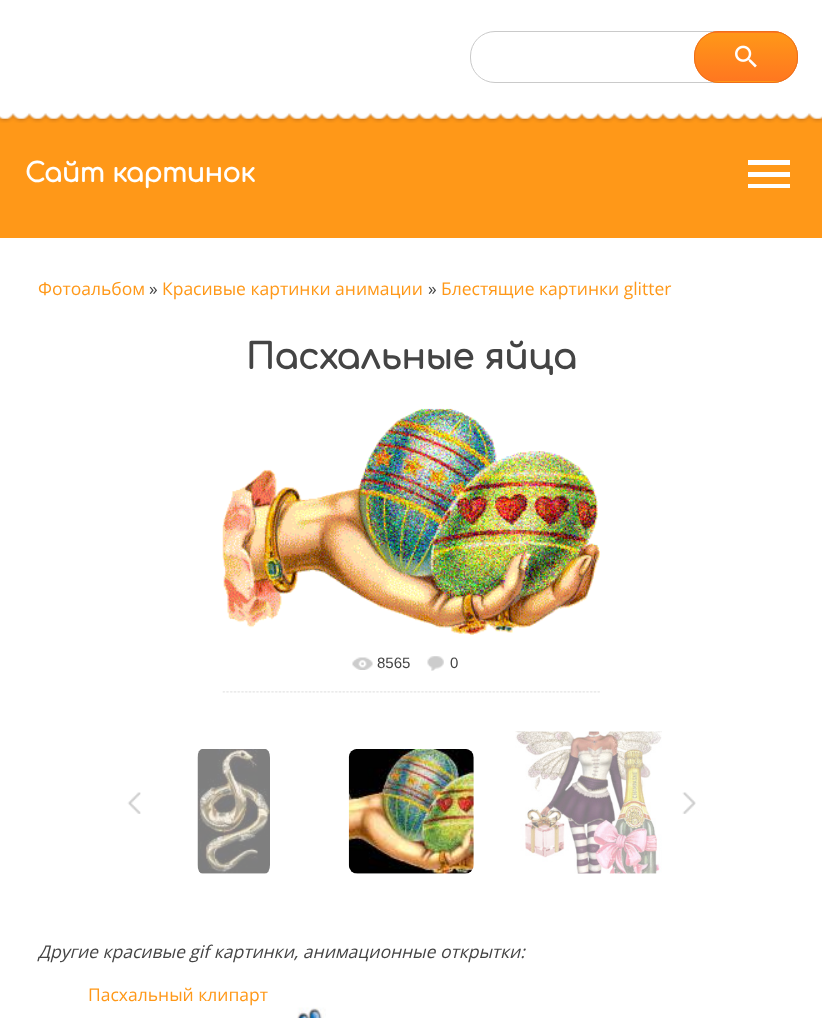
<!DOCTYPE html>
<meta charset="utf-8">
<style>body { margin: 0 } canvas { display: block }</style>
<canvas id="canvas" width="822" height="1018"></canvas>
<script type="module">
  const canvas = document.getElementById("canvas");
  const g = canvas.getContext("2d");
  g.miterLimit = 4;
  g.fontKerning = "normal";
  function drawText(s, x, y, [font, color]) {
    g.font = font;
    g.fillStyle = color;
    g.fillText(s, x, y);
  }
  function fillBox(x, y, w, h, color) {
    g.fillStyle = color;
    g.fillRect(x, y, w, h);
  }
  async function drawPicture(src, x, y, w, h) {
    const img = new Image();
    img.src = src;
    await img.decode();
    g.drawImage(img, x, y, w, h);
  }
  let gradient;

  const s1 = ["bold 26.25px Comfortaa", "#FFFFFF"];
  const s2 = ["17.5px Open Sans", "#FF9818"];
  const s3 = ["17.5px Open Sans", "#444444"];
  const s4 = ["bold 35px Comfortaa", "#444444"];
  const s5 = ["15px Liberation Sans", "#444444"];
  const s6 = ["italic 17.5px Open Sans", "#444444"];

  fillBox(0, 0, 822, 1018, "#FFFFFF");
  fillBox(0, 113, 822, 125, "#FF9818");
  await drawPicture("pic1.png", 0, 113, 822, 10);
  g.beginPath();
  g.roundRect(470.5, 31.5, 327, 51, 24.5);
  g.strokeStyle = "#CACACA";
  g.stroke();
  g.save();
  g.beginPath();
  g.roundRect(694, 31, 104, 52, 25);
  g.clip();
  gradient = g.createLinearGradient(746, 32, 746, -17);
  gradient.addColorStop(0, "#FF7720");
  gradient.addColorStop(1, "#FF9818");
  g.fillStyle = gradient;
  g.fillRect(709, 31, 74, 2);
  gradient = g.createLinearGradient(746, 81, 746, 32);
  gradient.addColorStop(0, "#FF7720");
  gradient.addColorStop(1, "#FF9818");
  g.fillStyle = gradient;
  g.fillRect(694, 33, 104, 48);
  gradient = g.createLinearGradient(746, 129, 746, 81);
  gradient.addColorStop(0, "#FF7720");
  gradient.addColorStop(1, "#FF9818");
  g.fillStyle = gradient;
  g.fillRect(709, 81, 74, 2);
  g.restore();
  g.beginPath();
  g.roundRect(694.5, 31.5, 103, 51, 24.5);
  g.strokeStyle = "#EF6E19";
  g.stroke();
  await drawPicture("pic2.png", 735, 45, 22, 23);
  drawText("Сайт картинок", 25, 182, s1);
  g.beginPath();
  g.moveTo(748, 160);
  g.lineTo(790, 160);
  g.lineTo(790, 165);
  g.lineTo(748, 165);
  g.closePath();
  g.moveTo(748, 177);
  g.lineTo(748, 172);
  g.lineTo(790, 172);
  g.lineTo(790, 177);
  g.closePath();
  g.moveTo(748, 188);
  g.lineTo(748, 184);
  g.lineTo(790, 184);
  g.lineTo(790, 188);
  g.closePath();
  g.fill();
  drawText("Фотоальбом", 38, 295, s2);
  drawText("»", 149, 295, s3);
  drawText("Красивые картинки анимации", 162, 295, s2);
  drawText("»", 428, 295, s3);
  drawText("Блестящие картинки glitter", 441, 295, s2);
  drawText("Пасхальные яйца", 246, 369, s4);
  await drawPicture("pic3.png", 222, 408, 378, 227);
  await drawPicture("pic4.png", 352, 657, 21, 13);
  drawText("8565", 377, 668, s5);
  await drawPicture("pic5.png", 427, 656, 17, 15);
  drawText("0", 450, 668, s5);
  await drawPicture("pic6.png", 222, 691, 378, 2);
  await drawPicture("pic7.png", 127, 792, 14, 22);
  await drawPicture("pic8.png", 197, 749, 73, 125);
  await drawPicture("pic9.png", 348, 749, 126, 125);
  await drawPicture("pic10.png", 515, 731, 147, 143);
  await drawPicture("pic11.png", 682, 792, 14, 22);
  drawText("Другие красивые gif картинки, анимационные открытки:", 38, 958, s6);
  drawText("Пасхальный клипарт", 88, 1001, s2);
  await drawPicture("pic12.png", 297, 1007, 29, 11);
</script>
